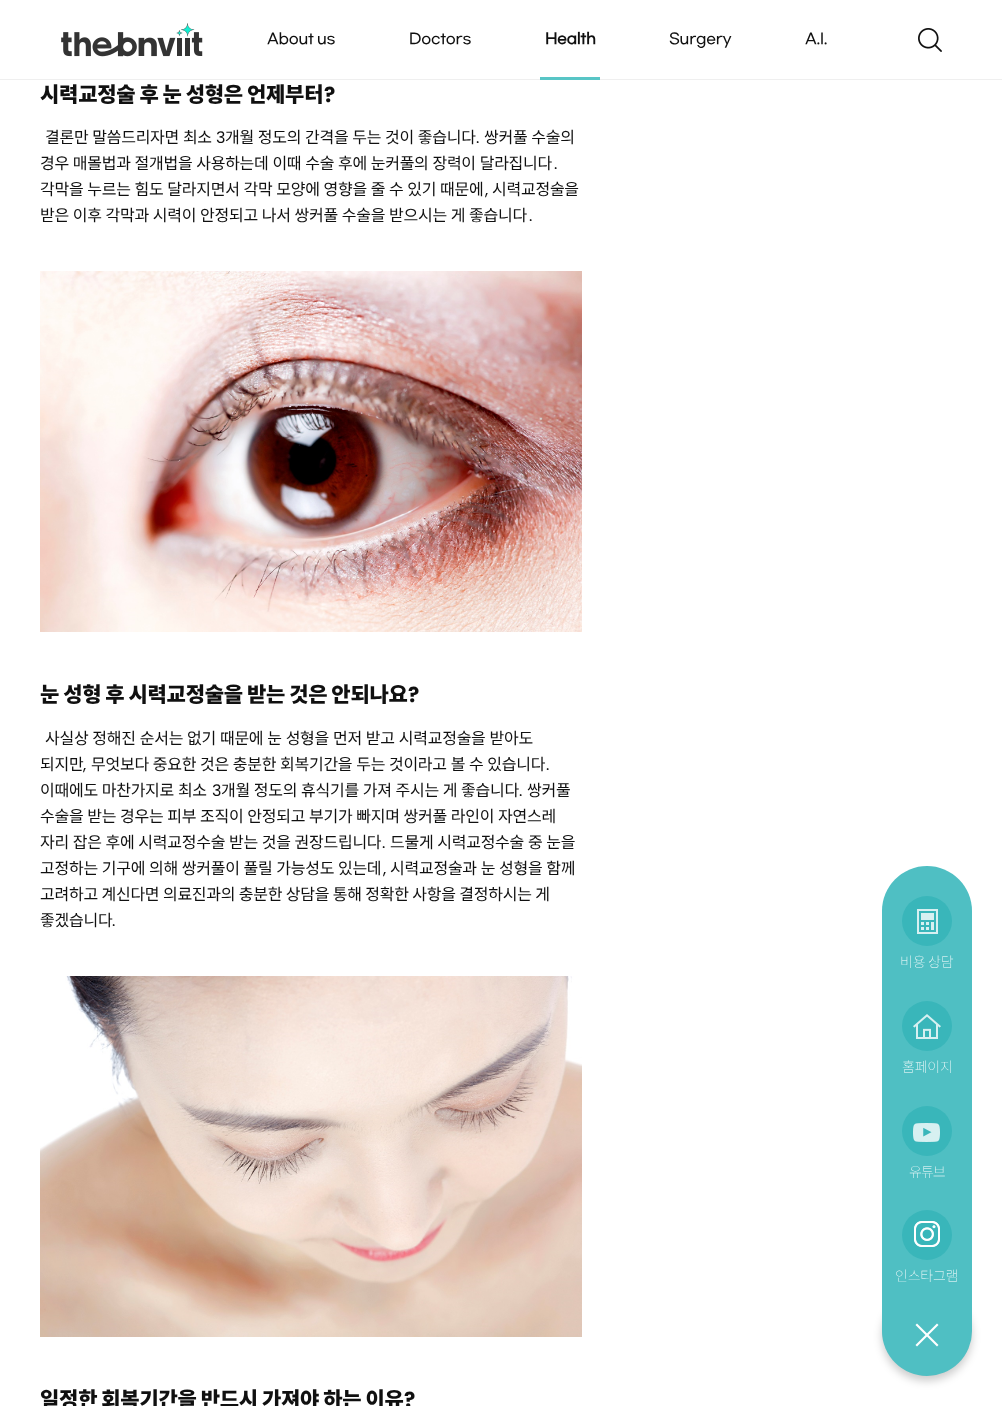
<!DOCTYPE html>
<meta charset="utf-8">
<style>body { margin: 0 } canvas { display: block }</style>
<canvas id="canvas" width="1002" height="1406"></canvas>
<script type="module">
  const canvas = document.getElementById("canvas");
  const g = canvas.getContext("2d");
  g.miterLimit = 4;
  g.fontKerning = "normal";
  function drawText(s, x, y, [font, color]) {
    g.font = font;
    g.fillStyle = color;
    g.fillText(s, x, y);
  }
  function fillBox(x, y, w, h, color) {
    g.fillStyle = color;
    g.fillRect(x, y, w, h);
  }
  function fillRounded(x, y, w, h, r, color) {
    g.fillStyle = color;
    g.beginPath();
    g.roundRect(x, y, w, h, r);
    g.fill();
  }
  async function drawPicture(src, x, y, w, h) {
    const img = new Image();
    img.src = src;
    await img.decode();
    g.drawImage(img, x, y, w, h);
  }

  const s1 = ["500 14.5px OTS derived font", "#101010"];
  const s2 = ["bold 14.5px OTS derived font", "#101010"];
  const s3 = ["900 21px Noto Sans KR", "#101010"];
  const s4 = ["bold 21px Poppins", "#101010"];
  const s5 = ["16px Noto Sans KR", "#101010"];
  const s6 = ["16px Poppins", "#101010"];
  const s7 = ["100 14px Noto Sans KR", "#FFFFFF"];

  fillBox(0, 0, 1002, 1406, "#FFFFFF");
  fillBox(0, 79, 1002, 1, "#EFEFEF");
  await drawPicture("pic1.png", 61, 23, 142, 34);
  g.letterSpacing = "-0.25px";
  drawText("About", 267, 43, s1);
  drawText("us", 317, 43, s1);
  drawText("Doctors", 409, 43, s1);
  fillBox(540, 77, 60, 3, "#58C5C6");
  drawText("Health", 545, 43, s2);
  drawText("Surgery", 669, 43, s1);
  drawText("A.I.", 805, 43, s1);
  await drawPicture("pic2.png", 918, 28, 24, 24);
  g.wordSpacing = "-0.5px";
  drawText("시력교정술 후 눈 성형은 언제부터", 40, 102, s3);
  g.wordSpacing = "0px";
  drawText("?", 324, 102, s4);
  g.wordSpacing = "0.5px";
  drawText("결론만 말씀드리자면 최소", 45, 143, s5);
  g.wordSpacing = "0px";
  drawText("3", 216, 143, s6);
  g.wordSpacing = "0.5px";
  drawText("개월 정도의 간격을 두는 것이 좋습니다", 225, 143, s5);
  g.wordSpacing = "0px";
  drawText(".", 476, 143, s6);
  g.wordSpacing = "0.5px";
  drawText("쌍커풀 수술의", 484, 143, s5);
  drawText("경우 매몰법과 절개법을 사용하는데 이때 수술 후에 눈커풀의 장력이 달라집니다", 40, 169, s5);
  g.wordSpacing = "0px";
  drawText(".", 554, 169, s6);
  g.wordSpacing = "0.5px";
  drawText("각막을 누르는 힘도 달라지면서 각막 모양에 영향을 줄 수 있기 때문에", 40, 195, s5);
  g.wordSpacing = "0px";
  drawText(",", 485, 195, s6);
  drawText("시력교정술을", 492, 195, s5);
  g.wordSpacing = "0.5px";
  drawText("받은 이후 각막과 시력이 안정되고 나서 쌍커풀 수술을 받으시는 게 좋습니다", 40, 221, s5);
  g.wordSpacing = "0px";
  drawText(".", 529, 221, s6);
  await drawPicture("pic3.png", 40, 271, 542, 361);
  g.wordSpacing = "-0.5px";
  drawText("눈 성형 후 시력교정술을 받는 것은 안되나요", 40, 702, s3);
  g.wordSpacing = "0px";
  drawText("?", 408, 702, s4);
  g.wordSpacing = "0.6px";
  drawText("사실상 정해진 순서는 없기 때문에 눈 성형을 먼저 받고 시력교정술을 받아도", 45, 744, s5);
  g.wordSpacing = "0px";
  drawText("되지만", 40, 770, s5);
  drawText(",", 83, 770, s6);
  g.wordSpacing = "0.5px";
  drawText("무엇보다 중요한 것은 충분한 회복기간을 두는 것이라고 볼 수 있습니다", 91, 770, s5);
  g.wordSpacing = "0px";
  drawText(".", 546, 770, s6);
  g.wordSpacing = "0.5px";
  drawText("이때에도 마찬가지로 최소", 40, 796, s5);
  g.wordSpacing = "0px";
  drawText("3", 212, 796, s6);
  g.wordSpacing = "0.5px";
  drawText("개월 정도의 휴식기를 가져 주시는 게 좋습니다", 221, 796, s5);
  g.wordSpacing = "0px";
  drawText(".", 519, 796, s6);
  drawText("쌍커풀", 527, 796, s5);
  g.wordSpacing = "0.5px";
  drawText("수술을 받는 경우는 피부 조직이 안정되고 부기가 빠지며 쌍커풀 라인이 자연스레", 40, 822, s5);
  drawText("자리 잡은 후에 시력교정수술 받는 것을 권장드립니다", 40, 848, s5);
  g.wordSpacing = "0px";
  drawText(".", 382, 848, s6);
  g.wordSpacing = "0.5px";
  drawText("드물게 시력교정수술 중 눈을", 390, 848, s5);
  drawText("고정하는 기구에 의해 쌍커풀이 풀릴 가능성도 있는데", 40, 874, s5);
  g.wordSpacing = "0px";
  drawText(",", 383, 874, s6);
  g.wordSpacing = "0.5px";
  drawText("시력교정술과 눈 성형을 함께", 390, 874, s5);
  g.wordSpacing = "0.25px";
  drawText("고려하고 계신다면 의료진과의 충분한 상담을 통해 정확한 사항을 결정하시는 게", 40, 900, s5);
  g.wordSpacing = "0px";
  drawText("좋겠습니다", 40, 926, s5);
  drawText(".", 112, 926, s6);
  await drawPicture("pic4.png", 40, 976, 542, 361);
  g.wordSpacing = "-0.5px";
  drawText("일정한 회복기간을 반드시 가져야 하는 이유", 40, 1407, s3);
  g.wordSpacing = "0px";
  drawText("?", 404, 1407, s4);
  g.fillStyle = "rgba(0, 0, 0, 0.2)";
  g.filter = "blur(4px)";
  g.beginPath();
  g.roundRect(882, 1291, 90, 90, 45);
  g.fill();
  g.filter = "none";
  g.save();
  g.beginPath();
  g.roundRect(882, 1286, 90, 90, 45);
  g.clip();
  g.beginPath();
  g.moveTo(971, 1375);
  g.lineTo(969, 1375.5);
  g.lineTo(955, 1375.5);
  g.bezierCurveTo(947.5, 1375.5, 885.5, 1376.5, 883.5, 1375);
  g.lineTo(883, 1375);
  g.strokeStyle = "#BBBBBB";
  g.stroke();
  g.beginPath();
  g.moveTo(883, 1375);
  g.lineTo(882.5, 1373);
  g.lineTo(882.5, 1303);
  g.bezierCurveTo(882.5, 1283, 879, 1286.5, 899, 1286.5);
  g.lineTo(955, 1286.5);
  g.bezierCurveTo(975, 1286.5, 971.5, 1283, 971.5, 1303);
  g.lineTo(971.5, 1373);
  g.lineTo(971, 1375);
  g.strokeStyle = "#CCCCCC";
  g.stroke();
  g.restore();
  fillRounded(882, 866, 90, 510, 45, "#4FBFC3");
  g.fillStyle = "#39B6BA";
  g.beginPath();
  g.arc(927, 921, 25, 0, Math.PI * 2);
  g.fill();
  await drawPicture("pic5.png", 917, 909, 21, 25);
  drawText("비용 상담", 900, 967, s7);
  g.fillStyle = "#39B6BA";
  g.beginPath();
  g.arc(927, 1026, 25, 0, Math.PI * 2);
  g.fill();
  await drawPicture("pic6.png", 913, 1014, 28, 25);
  drawText("홈페이지", 902, 1072, s7);
  g.fillStyle = "#39B6BA";
  g.beginPath();
  g.arc(927, 1131, 25, 0, Math.PI * 2);
  g.fill();
  await drawPicture("pic7.png", 913, 1123, 27, 19);
  g.letterSpacing = "-1px";
  drawText("유튜브", 909, 1177, s7);
  g.fillStyle = "#39B6BA";
  g.beginPath();
  g.arc(927, 1235, 25, 0, Math.PI * 2);
  g.fill();
  await drawPicture("pic8.png", 914, 1221, 26, 26);
  g.letterSpacing = "-0.25px";
  drawText("인스타그램", 895, 1281, s7);
  g.beginPath();
  g.moveTo(917, 1323.5);
  g.lineTo(938.5, 1345);
  g.lineTo(937, 1346.5);
  g.lineTo(915.5, 1325);
  g.closePath();
  g.fill();
  g.beginPath();
  g.moveTo(915.5, 1345);
  g.lineTo(937, 1323.5);
  g.lineTo(938.5, 1325);
  g.lineTo(917, 1346.5);
  g.closePath();
  g.fill();
</script>
